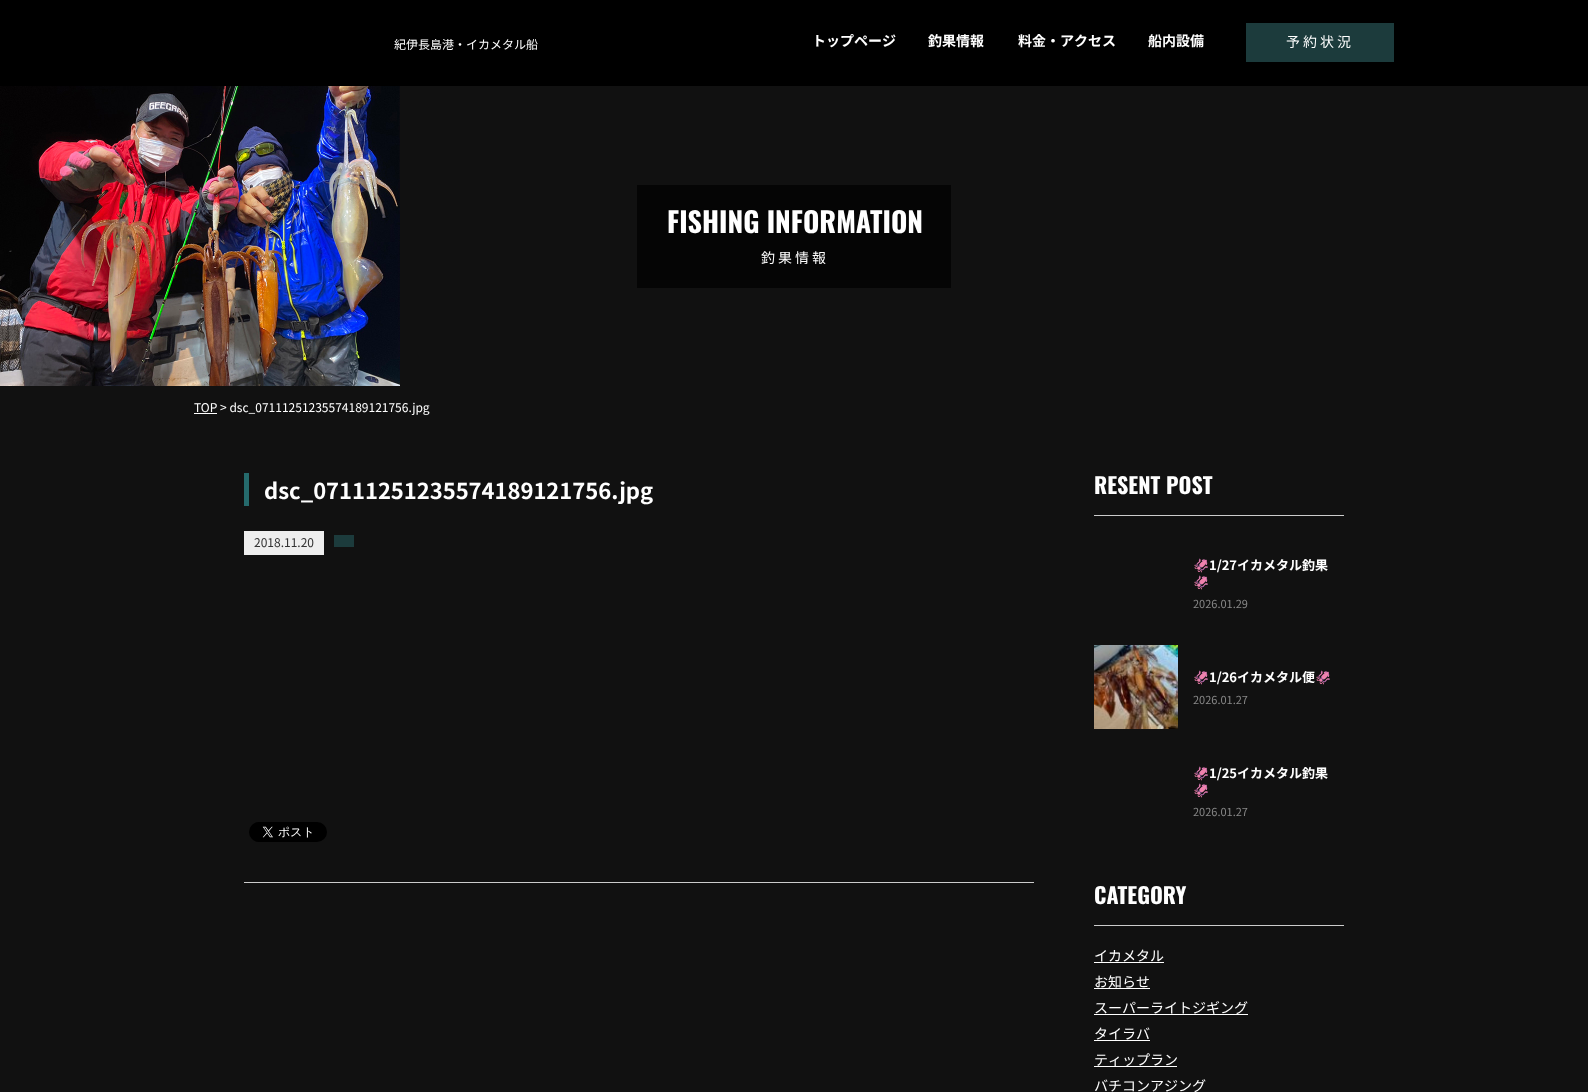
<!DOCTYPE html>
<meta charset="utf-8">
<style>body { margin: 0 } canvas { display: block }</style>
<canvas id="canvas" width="1588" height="1092"></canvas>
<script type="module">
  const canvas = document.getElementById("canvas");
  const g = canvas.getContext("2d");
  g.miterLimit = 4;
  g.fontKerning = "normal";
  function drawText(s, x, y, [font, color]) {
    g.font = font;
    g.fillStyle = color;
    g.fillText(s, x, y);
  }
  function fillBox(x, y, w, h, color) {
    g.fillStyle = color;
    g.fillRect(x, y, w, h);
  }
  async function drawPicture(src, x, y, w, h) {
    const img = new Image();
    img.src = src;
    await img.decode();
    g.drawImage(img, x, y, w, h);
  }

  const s1 = ["12px Noto Sans JP", "#FFFFFF"];
  const s2 = ["bold 14px Noto Sans JP", "#FFFFFF"];
  const s3 = ["14px Noto Sans JP", "#FFFFFF"];
  const s4 = ["bold 28px Oswald", "#FFFFFF"];
  const s5 = ["bold 22px Noto Sans JP", "#FFFFFF"];
  const s6 = ["12px Noto Sans JP", "#333333"];
  const s7 = ["bold 22px Oswald", "#FFFFFF"];
  const s8 = ["bold 13px Noto Color Emoji", "#FFFFFF"];
  const s9 = ["bold 13px Noto Sans JP", "#FFFFFF"];
  const s10 = ["11px Noto Sans JP", "#888888"];

  fillBox(0, 0, 1588, 1092, "#111111");
  fillBox(0, 0, 1588, 86, "#000000");
  drawText("紀伊長島港・イカメタル船", 394, 49, s1);
  drawText("トップページ", 812, 46, s2);
  drawText("釣果情報", 928, 46, s2);
  drawText("料金・アクセス", 1018, 46, s2);
  drawText("船内設備", 1148, 46, s2);
  fillBox(1246, 23, 148, 39, "#1C3B3C");
  g.letterSpacing = "3px";
  drawText("予約状況", 1286, 47, s3);
  await drawPicture("pic1.png", 0, 86, 400, 300);
  fillBox(637, 185, 314, 103, "#050505");
  g.letterSpacing = "0px";
  drawText("FISHING INFORMATION", 667, 233, s4);
  g.letterSpacing = "3px";
  drawText("釣果情報", 761, 263, s3);
  fillBox(194, 413, 23, 1, "#FFFFFF");
  g.letterSpacing = "0px";
  drawText("TOP > dsc_07111251235574189121756.jpg", 194, 412, s1);
  fillBox(244, 473, 5, 33, "#256A6C");
  drawText("dsc_07111251235574189121756.jpg", 264, 499, s5);
  fillBox(244, 531, 80, 24, "#EEEEEE");
  drawText("2018.11.20", 254, 547, s6);
  fillBox(334, 535, 20, 12, "#1C3B3C");
  fillBox(244, 882, 790, 1, "#CCCCCC");
  await drawPicture("pic2.png", 249, 822, 78, 20);
  fillBox(1094, 515, 250, 1, "#CCCCCC");
  drawText("RESENT POST", 1094, 494, s7);
  drawText("🦑", 1193, 570, s8);
  drawText("1/27イカメタル釣果", 1209, 570, s9);
  drawText("🦑", 1193, 587, s8);
  drawText("2026.01.29", 1193, 608, s10);
  await drawPicture("pic3.png", 1094, 645, 84, 84);
  drawText("🦑", 1193, 682, s8);
  drawText("1/26イカメタル便", 1209, 682, s9);
  drawText("🦑", 1315, 682, s8);
  drawText("2026.01.27", 1193, 704, s10);
  drawText("🦑", 1193, 778, s8);
  drawText("1/25イカメタル釣果", 1209, 778, s9);
  drawText("🦑", 1193, 795, s8);
  drawText("2026.01.27", 1193, 816, s10);
  fillBox(1094, 925, 250, 1, "#CCCCCC");
  drawText("CATEGORY", 1094, 904, s7);
  drawText("イカメタル", 1094, 961, s3);
  fillBox(1094, 962, 70, 1, "#FFFFFF");
  drawText("お知らせ", 1094, 987, s3);
  fillBox(1094, 988, 56, 1, "#FFFFFF");
  drawText("スーパーライトジギング", 1094, 1013, s3);
  fillBox(1094, 1014, 154, 1, "#FFFFFF");
  drawText("タイラバ", 1094, 1039, s3);
  fillBox(1094, 1040, 56, 1, "#FFFFFF");
  fillBox(1094, 1066, 83, 1, "#FFFFFF");
  drawText("ティップラン", 1094, 1065, s3);
  drawText("バチコンアジング", 1094, 1091, s3);
</script>
